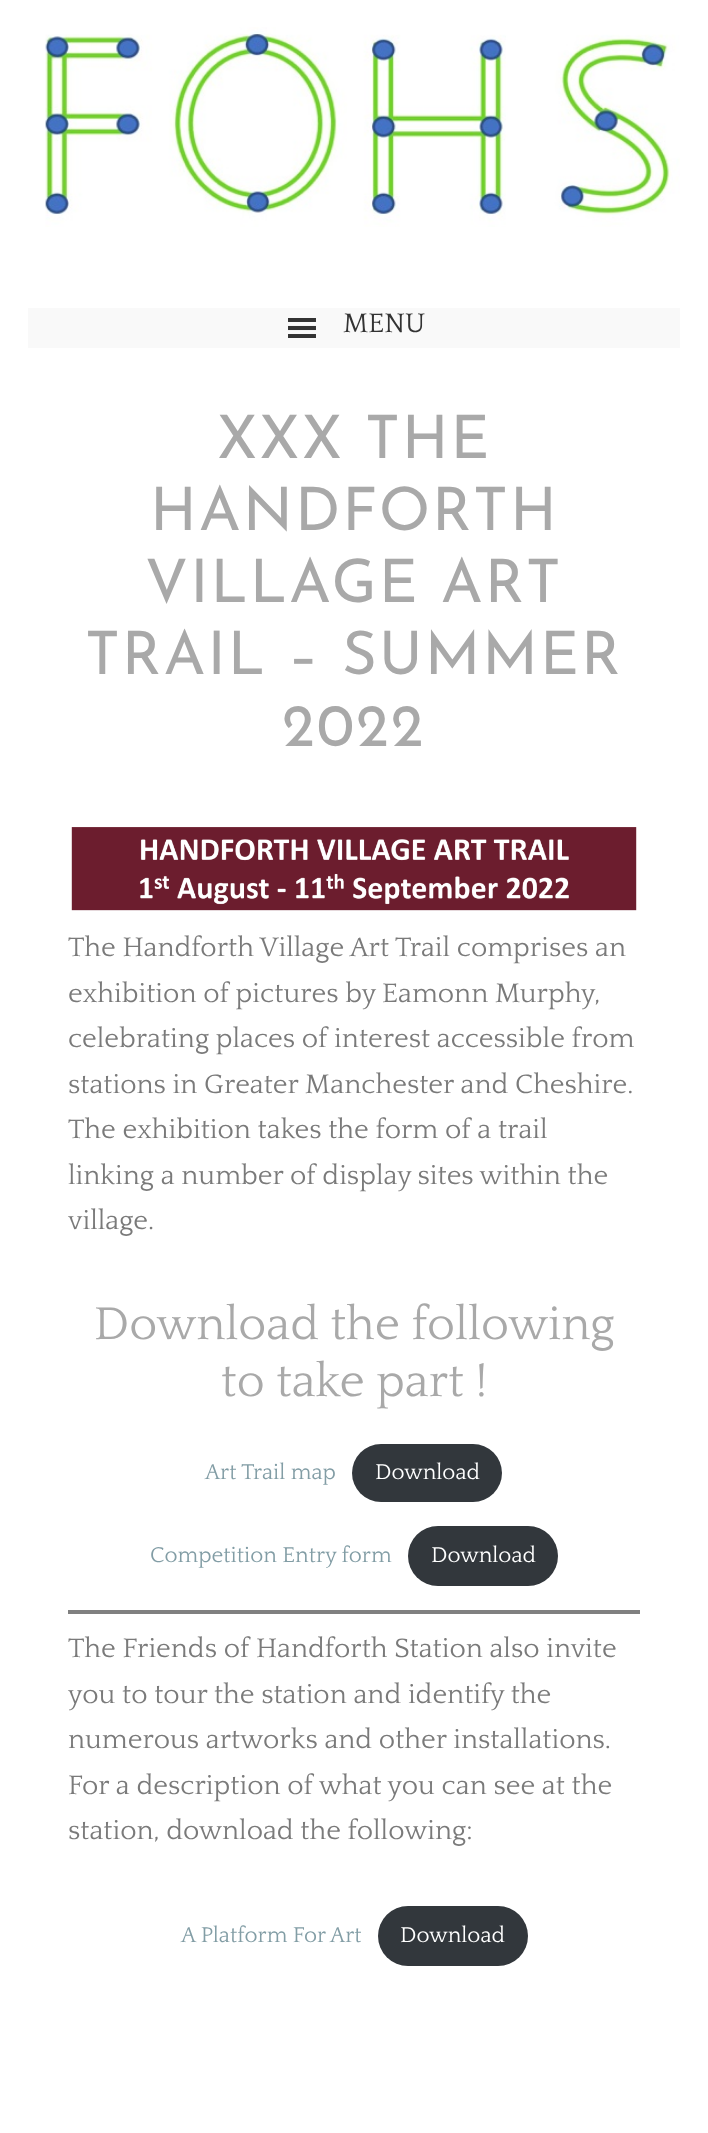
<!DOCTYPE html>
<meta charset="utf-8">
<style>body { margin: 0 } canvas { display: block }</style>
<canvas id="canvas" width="708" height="2133"></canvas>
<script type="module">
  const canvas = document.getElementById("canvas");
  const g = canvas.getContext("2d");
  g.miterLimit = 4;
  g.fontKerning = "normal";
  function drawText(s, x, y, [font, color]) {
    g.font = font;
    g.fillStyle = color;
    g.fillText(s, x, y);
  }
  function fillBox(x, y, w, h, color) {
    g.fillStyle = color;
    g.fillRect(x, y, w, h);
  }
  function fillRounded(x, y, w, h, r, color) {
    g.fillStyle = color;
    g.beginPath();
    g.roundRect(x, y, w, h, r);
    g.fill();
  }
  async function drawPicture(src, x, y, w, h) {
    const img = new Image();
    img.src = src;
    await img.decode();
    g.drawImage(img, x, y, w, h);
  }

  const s1 = ["28px Quattrocento", "#333333"];
  const s2 = ["100 60px Josefin Sans", "#A9A9A9"];
  const s3 = ["28px Quattrocento", "#7A7A7A"];
  const s4 = ["48px Quattrocento", "#A9A9A9"];
  const s5 = ["22.4px Quattrocento", "#829DA5"];
  const s6 = ["22.4px Quattrocento", "#FFFFFF"];

  fillBox(0, 0, 708, 2133, "#FFFFFF");
  await drawPicture("pic1.png", 45, 27, 635, 200);
  fillBox(28, 308, 652, 40, "#F9F9F9");
  await drawPicture("pic2.png", 288, 318, 28, 20);
  drawText("MENU", 343, 332, s1);
  g.letterSpacing = "2px";
  drawText("XXX THE", 217, 458, s2);
  drawText("HANDFORTH", 150, 530, s2);
  drawText("VILLAGE ART", 145, 602, s2);
  drawText("TRAIL – SUMMER", 85, 674, s2);
  drawText("2022", 282, 746, s2);
  await drawPicture("pic3.png", 71, 827, 566, 84);
  g.letterSpacing = "0px";
  drawText("The Handforth Village Art Trail comprises an", 68, 956, s3);
  drawText("exhibition of pictures by Eamonn Murphy,", 68, 1002, s3);
  drawText("celebrating places of interest accessible from", 68, 1047, s3);
  drawText("stations in Greater Manchester and Cheshire.", 68, 1093, s3);
  drawText("The exhibition takes the form of a trail", 68, 1138, s3);
  drawText("linking a number of display sites within the", 68, 1184, s3);
  drawText("village.", 68, 1229, s3);
  drawText("Download the following", 94, 1339, s4);
  drawText("to take part !", 221, 1396, s4);
  drawText("Art Trail map", 205, 1479, s5);
  fillRounded(352, 1444, 150, 58, 29, "#32373C");
  drawText("Download", 375, 1479, s6);
  drawText("Competition Entry form", 150, 1562, s5);
  fillRounded(408, 1526, 150, 60, 30, "#32373C");
  drawText("Download", 431, 1562, s6);
  fillBox(68, 1610, 572, 4, "#808080");
  drawText("The Friends of Handforth Station also invite", 68, 1657, s3);
  drawText("you to tour the station and identify the", 68, 1703, s3);
  drawText("numerous artworks and other installations.", 68, 1748, s3);
  drawText("For a description of what you can see at the", 68, 1794, s3);
  drawText("station, download the following:", 68, 1839, s3);
  drawText("A Platform For Art", 181, 1942, s5);
  fillRounded(378, 1906, 150, 60, 30, "#32373C");
  drawText("Download", 400, 1942, s6);
</script>
